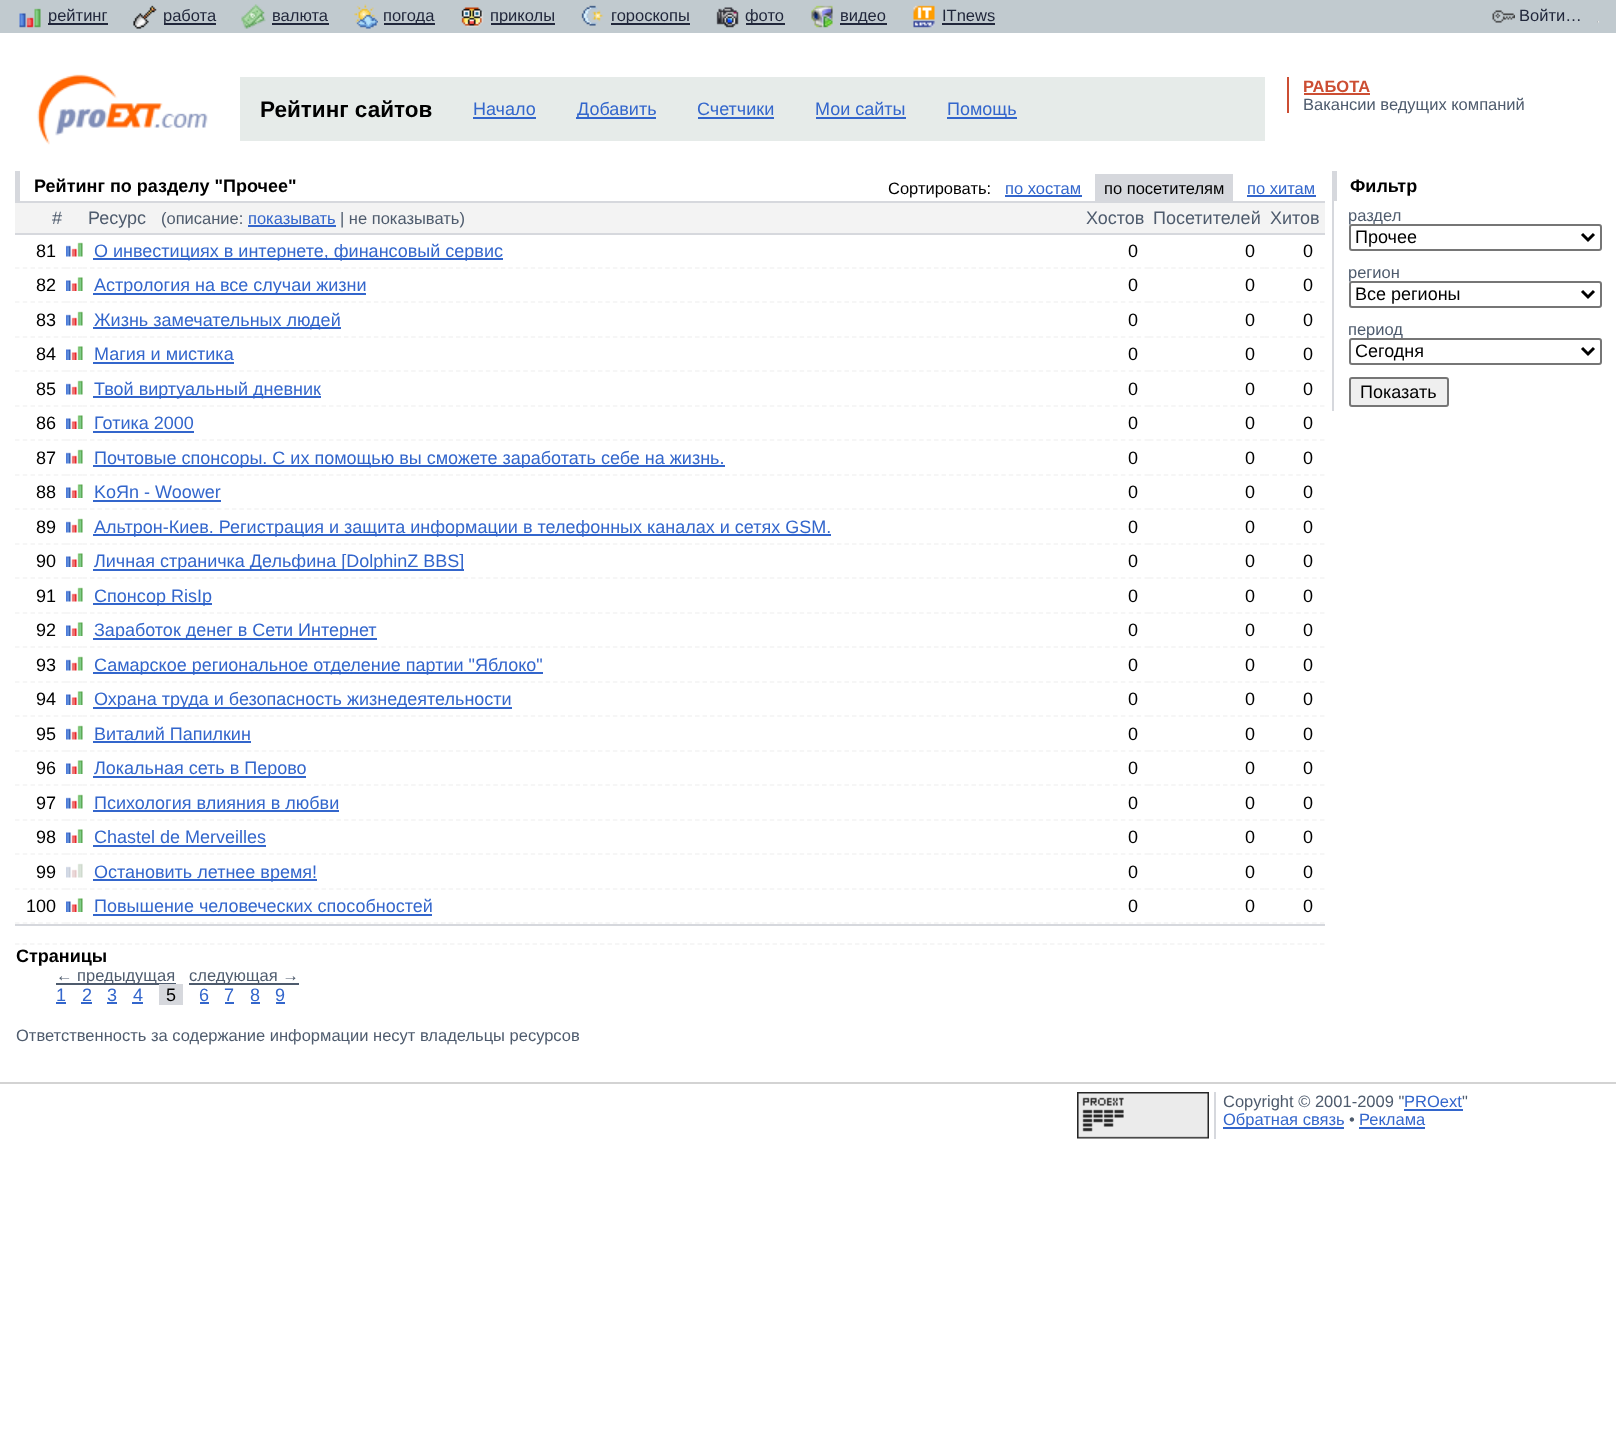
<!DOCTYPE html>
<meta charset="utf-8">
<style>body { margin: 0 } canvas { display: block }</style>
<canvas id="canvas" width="1616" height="1449"></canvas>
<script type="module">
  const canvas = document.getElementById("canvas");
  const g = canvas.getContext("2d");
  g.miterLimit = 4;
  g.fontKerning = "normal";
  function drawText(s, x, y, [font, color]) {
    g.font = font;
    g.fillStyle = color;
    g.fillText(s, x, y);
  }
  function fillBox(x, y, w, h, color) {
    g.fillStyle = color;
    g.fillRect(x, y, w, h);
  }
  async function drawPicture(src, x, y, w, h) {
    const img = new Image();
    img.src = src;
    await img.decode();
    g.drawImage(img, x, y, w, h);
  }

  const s1 = ["16.5px Liberation Sans", "#21273B"];
  const s2 = ["bold 22.5px Liberation Sans", "#000000"];
  const s3 = ["18px Liberation Sans", "#3366CC"];
  const s4 = ["bold 16.5px Liberation Sans", "#CC4E33"];
  const s5 = ["16.5px Liberation Sans", "#4E5B6D"];
  const s6 = ["bold 18px Liberation Sans", "#000000"];
  const s7 = ["16.5px Liberation Sans", "#000000"];
  const s8 = ["16.5px Liberation Sans", "#3366CC"];
  const s9 = ["18px Liberation Sans", "#4E5B6D"];
  const s10 = ["18px Liberation Sans", "#000000"];

  fillBox(0, 0, 1616, 1449, "#FFFFFF");
  fillBox(0, 0, 1616, 33, "#C1CACF");
  await drawPicture("pic1.png", 19, 8, 22, 20);
  fillBox(48, 23, 60, 2, "#21273B");
  drawText("рейтинг", 48, 21, s1);
  await drawPicture("pic2.png", 133, 5, 24, 24);
  fillBox(164, 23, 52, 2, "#21273B");
  drawText("работа", 163, 21, s1);
  await drawPicture("pic3.png", 241, 4, 25, 25);
  drawText("валюта", 272, 21, s1);
  fillBox(272, 23, 57, 2, "#21273B");
  await drawPicture("pic4.png", 354, 4, 24, 25);
  fillBox(384, 23, 51, 2, "#21273B");
  drawText("погода", 383, 21, s1);
  await drawPicture("pic5.png", 461, 7, 23, 21);
  fillBox(491, 23, 64, 2, "#21273B");
  drawText("приколы", 490, 21, s1);
  await drawPicture("pic6.png", 581, 5, 23, 21);
  fillBox(611, 23, 79, 2, "#21273B");
  drawText("гороскопы", 611, 21, s1);
  await drawPicture("pic7.png", 716, 7, 23, 21);
  fillBox(746, 23, 39, 2, "#21273B");
  drawText("фото", 745, 21, s1);
  await drawPicture("pic8.png", 811, 5, 22, 23);
  fillBox(840, 23, 47, 2, "#21273B");
  drawText("видео", 840, 21, s1);
  await drawPicture("pic9.png", 913, 5, 22, 23);
  drawText("ITnews", 942, 21, s1);
  fillBox(942, 23, 53, 2, "#21273B");
  await drawPicture("pic10.png", 1492, 10, 23, 13);
  drawText("Войти…", 1519, 21, s1);
  await drawPicture("pic11.png", 1597, 21, 2, 2);
  await drawPicture("pic12.png", 37, 74, 171, 71);
  fillBox(240, 77, 1025, 64, "#E6EBE9");
  drawText("Рейтинг сайтов", 260, 117, s2);
  drawText("Начало", 473, 115, s3);
  fillBox(473, 117, 63, 2, "#3366CC");
  fillBox(576, 117, 80, 2, "#3366CC");
  drawText("Добавить", 577, 115, s3);
  drawText("Счетчики", 697, 115, s3);
  fillBox(698, 117, 76, 2, "#3366CC");
  drawText("Мои сайты", 815, 115, s3);
  fillBox(816, 117, 90, 2, "#3366CC");
  fillBox(947, 117, 70, 2, "#3366CC");
  drawText("Помощь", 947, 115, s3);
  fillBox(1287, 77, 2, 36, "#CC4E33");
  drawText("РАБОТА", 1303, 92, s4);
  fillBox(1304, 93, 66, 2, "#CC4E33");
  drawText("Вакансии ведущих компаний", 1303, 110, s5);
  fillBox(15, 171, 5, 30, "#D6D8DD");
  drawText("Рейтинг по разделу \"Прочее\"", 34, 192, s6);
  drawText("Сортировать:", 888, 194, s7);
  drawText("по хостам", 1005, 194, s8);
  fillBox(1005, 195, 77, 2, "#3366CC");
  fillBox(1095, 174, 138, 27, "#D6D8DD");
  drawText("по посетителям", 1104, 194, s7);
  drawText("по хитам", 1247, 194, s8);
  fillBox(1247, 195, 69, 2, "#3366CC");
  fillBox(15, 203, 1310, 30, "#F3F3F3");
  fillBox(15, 201, 1310, 2, "#D6D8DD");
  fillBox(15, 233, 1310, 2, "#D6D8DD");
  drawText("#", 52, 224, s9);
  drawText("Ресурс", 88, 224, s9);
  drawText("(описание:", 161, 224, s5);
  drawText("показывать", 248, 224, s8);
  fillBox(248, 225, 88, 2, "#3366CC");
  drawText("| не показывать)", 340, 224, s5);
  drawText("Хостов", 1086, 224, s9);
  drawText("Посетителей", 1153, 224, s9);
  drawText("Хитов", 1270, 224, s9);
  g.beginPath();
  g.moveTo(15, 268);
  g.lineTo(66, 268);
  g.strokeStyle = "#F3F3F3";
  g.lineWidth = 1.5;
  g.setLineDash([4.5, 3.25]);
  g.stroke();
  drawText("81", 36, 257, s10);
  g.beginPath();
  g.moveTo(66, 268);
  g.lineTo(70.5, 268);
  g.moveTo(72, 268);
  g.lineTo(76.5, 268);
  g.moveTo(78, 268);
  g.lineTo(82.5, 268);
  g.setLineDash([]);
  g.stroke();
  await drawPicture("pic13.png", 66, 242, 17, 15);
  g.beginPath();
  g.moveTo(82.5, 268);
  g.lineTo(1081.5, 268);
  g.setLineDash([4.5, 2.97]);
  g.stroke();
  fillBox(93, 258, 410, 2, "#3366CC");
  drawText("О инвестициях в интернете, финансовый сервис", 94, 257, s3);
  g.beginPath();
  g.moveTo(1081.5, 268);
  g.lineTo(1149, 268);
  g.setLineDash([4.5, 3.38]);
  g.stroke();
  drawText("0", 1128, 257, s10);
  g.beginPath();
  g.moveTo(1149, 268);
  g.lineTo(1264.5, 268);
  g.setLineDash([4.5, 2.9]);
  g.stroke();
  drawText("0", 1245, 257, s10);
  g.beginPath();
  g.moveTo(1264.5, 268);
  g.lineTo(1324.5, 268);
  g.setLineDash([4.5, 3.44]);
  g.stroke();
  drawText("0", 1303, 257, s10);
  g.beginPath();
  g.moveTo(15, 302);
  g.lineTo(66, 302);
  g.setLineDash([4.5, 3.25]);
  g.stroke();
  drawText("82", 36, 291, s10);
  g.beginPath();
  g.moveTo(66, 302);
  g.lineTo(70.5, 302);
  g.moveTo(72, 302);
  g.lineTo(76.5, 302);
  g.moveTo(78, 302);
  g.lineTo(82.5, 302);
  g.setLineDash([]);
  g.stroke();
  await drawPicture("pic14.png", 66, 277, 17, 14);
  g.beginPath();
  g.moveTo(82.5, 302);
  g.lineTo(1081.5, 302);
  g.setLineDash([4.5, 2.97]);
  g.stroke();
  fillBox(93, 293, 273, 2, "#3366CC");
  drawText("Астрология на все случаи жизни", 94, 291, s3);
  g.beginPath();
  g.moveTo(1081.5, 302);
  g.lineTo(1149, 302);
  g.setLineDash([4.5, 3.38]);
  g.stroke();
  drawText("0", 1128, 291, s10);
  g.beginPath();
  g.moveTo(1149, 302);
  g.lineTo(1264.5, 302);
  g.setLineDash([4.5, 2.9]);
  g.stroke();
  drawText("0", 1245, 291, s10);
  g.beginPath();
  g.moveTo(1264.5, 302);
  g.lineTo(1324.5, 302);
  g.setLineDash([4.5, 3.44]);
  g.stroke();
  drawText("0", 1303, 291, s10);
  g.beginPath();
  g.moveTo(15, 337);
  g.lineTo(66, 337);
  g.setLineDash([4.5, 3.25]);
  g.stroke();
  drawText("83", 36, 326, s10);
  g.beginPath();
  g.moveTo(66, 337);
  g.lineTo(70.5, 337);
  g.moveTo(72, 337);
  g.lineTo(76.5, 337);
  g.moveTo(78, 337);
  g.lineTo(82.5, 337);
  g.setLineDash([]);
  g.stroke();
  await drawPicture("pic13.png", 66, 311, 17, 15);
  g.beginPath();
  g.moveTo(82.5, 337);
  g.lineTo(1081.5, 337);
  g.setLineDash([4.5, 2.97]);
  g.stroke();
  fillBox(93, 327, 248, 2, "#3366CC");
  drawText("Жизнь замечательных людей", 94, 326, s3);
  g.beginPath();
  g.moveTo(1081.5, 337);
  g.lineTo(1149, 337);
  g.setLineDash([4.5, 3.38]);
  g.stroke();
  drawText("0", 1128, 326, s10);
  g.beginPath();
  g.moveTo(1149, 337);
  g.lineTo(1264.5, 337);
  g.setLineDash([4.5, 2.9]);
  g.stroke();
  drawText("0", 1245, 326, s10);
  g.beginPath();
  g.moveTo(1264.5, 337);
  g.lineTo(1324.5, 337);
  g.setLineDash([4.5, 3.44]);
  g.stroke();
  drawText("0", 1303, 326, s10);
  g.beginPath();
  g.moveTo(15, 371);
  g.lineTo(66, 371);
  g.setLineDash([4.5, 3.25]);
  g.stroke();
  drawText("84", 36, 360, s10);
  g.beginPath();
  g.moveTo(66, 371);
  g.lineTo(70.5, 371);
  g.moveTo(72, 371);
  g.lineTo(76.5, 371);
  g.moveTo(78, 371);
  g.lineTo(82.5, 371);
  g.setLineDash([]);
  g.stroke();
  await drawPicture("pic14.png", 66, 346, 17, 14);
  g.beginPath();
  g.moveTo(82.5, 371);
  g.lineTo(1081.5, 371);
  g.setLineDash([4.5, 2.97]);
  g.stroke();
  drawText("Магия и мистика", 94, 360, s3);
  fillBox(93, 362, 141, 2, "#3366CC");
  g.beginPath();
  g.moveTo(1081.5, 371);
  g.lineTo(1149, 371);
  g.setLineDash([4.5, 3.38]);
  g.stroke();
  drawText("0", 1128, 360, s10);
  g.beginPath();
  g.moveTo(1149, 371);
  g.lineTo(1264.5, 371);
  g.setLineDash([4.5, 2.9]);
  g.stroke();
  drawText("0", 1245, 360, s10);
  g.beginPath();
  g.moveTo(1264.5, 371);
  g.lineTo(1324.5, 371);
  g.setLineDash([4.5, 3.44]);
  g.stroke();
  drawText("0", 1303, 360, s10);
  g.beginPath();
  g.moveTo(15, 406);
  g.lineTo(66, 406);
  g.setLineDash([4.5, 3.25]);
  g.stroke();
  drawText("85", 36, 395, s10);
  g.beginPath();
  g.moveTo(66, 406);
  g.lineTo(70.5, 406);
  g.moveTo(72, 406);
  g.lineTo(76.5, 406);
  g.moveTo(78, 406);
  g.lineTo(82.5, 406);
  g.setLineDash([]);
  g.stroke();
  await drawPicture("pic13.png", 66, 380, 17, 15);
  g.beginPath();
  g.moveTo(82.5, 406);
  g.lineTo(1081.5, 406);
  g.setLineDash([4.5, 2.97]);
  g.stroke();
  fillBox(93, 396, 228, 2, "#3366CC");
  drawText("Твой виртуальный дневник", 94, 395, s3);
  g.beginPath();
  g.moveTo(1081.5, 406);
  g.lineTo(1149, 406);
  g.setLineDash([4.5, 3.38]);
  g.stroke();
  drawText("0", 1128, 395, s10);
  g.beginPath();
  g.moveTo(1149, 406);
  g.lineTo(1264.5, 406);
  g.setLineDash([4.5, 2.9]);
  g.stroke();
  drawText("0", 1245, 395, s10);
  g.beginPath();
  g.moveTo(1264.5, 406);
  g.lineTo(1324.5, 406);
  g.setLineDash([4.5, 3.44]);
  g.stroke();
  drawText("0", 1303, 395, s10);
  g.beginPath();
  g.moveTo(15, 440);
  g.lineTo(66, 440);
  g.setLineDash([4.5, 3.25]);
  g.stroke();
  drawText("86", 36, 429, s10);
  g.beginPath();
  g.moveTo(66, 440);
  g.lineTo(70.5, 440);
  g.moveTo(72, 440);
  g.lineTo(76.5, 440);
  g.moveTo(78, 440);
  g.lineTo(82.5, 440);
  g.setLineDash([]);
  g.stroke();
  await drawPicture("pic14.png", 66, 415, 17, 14);
  g.beginPath();
  g.moveTo(82.5, 440);
  g.lineTo(1081.5, 440);
  g.setLineDash([4.5, 2.97]);
  g.stroke();
  drawText("Готика 2000", 94, 429, s3);
  fillBox(93, 431, 101, 2, "#3366CC");
  g.beginPath();
  g.moveTo(1081.5, 440);
  g.lineTo(1149, 440);
  g.setLineDash([4.5, 3.38]);
  g.stroke();
  drawText("0", 1128, 429, s10);
  g.beginPath();
  g.moveTo(1149, 440);
  g.lineTo(1264.5, 440);
  g.setLineDash([4.5, 2.9]);
  g.stroke();
  drawText("0", 1245, 429, s10);
  g.beginPath();
  g.moveTo(1264.5, 440);
  g.lineTo(1324.5, 440);
  g.setLineDash([4.5, 3.44]);
  g.stroke();
  drawText("0", 1303, 429, s10);
  g.beginPath();
  g.moveTo(15, 475);
  g.lineTo(66, 475);
  g.setLineDash([4.5, 3.25]);
  g.stroke();
  drawText("87", 36, 464, s10);
  g.beginPath();
  g.moveTo(66, 475);
  g.lineTo(70.5, 475);
  g.moveTo(72, 475);
  g.lineTo(76.5, 475);
  g.moveTo(78, 475);
  g.lineTo(82.5, 475);
  g.setLineDash([]);
  g.stroke();
  await drawPicture("pic13.png", 66, 449, 17, 15);
  g.beginPath();
  g.moveTo(82.5, 475);
  g.lineTo(1081.5, 475);
  g.setLineDash([4.5, 2.97]);
  g.stroke();
  fillBox(93, 465, 632, 2, "#3366CC");
  drawText("Почтовые спонсоры. С их помощью вы сможете заработать себе на жизнь.", 94, 464, s3);
  g.beginPath();
  g.moveTo(1081.5, 475);
  g.lineTo(1149, 475);
  g.setLineDash([4.5, 3.38]);
  g.stroke();
  drawText("0", 1128, 464, s10);
  g.beginPath();
  g.moveTo(1149, 475);
  g.lineTo(1264.5, 475);
  g.setLineDash([4.5, 2.9]);
  g.stroke();
  drawText("0", 1245, 464, s10);
  g.beginPath();
  g.moveTo(1264.5, 475);
  g.lineTo(1324.5, 475);
  g.setLineDash([4.5, 3.44]);
  g.stroke();
  drawText("0", 1303, 464, s10);
  g.beginPath();
  g.moveTo(15, 509);
  g.lineTo(66, 509);
  g.setLineDash([4.5, 3.25]);
  g.stroke();
  drawText("88", 36, 498, s10);
  g.beginPath();
  g.moveTo(66, 509);
  g.lineTo(70.5, 509);
  g.moveTo(72, 509);
  g.lineTo(76.5, 509);
  g.moveTo(78, 509);
  g.lineTo(82.5, 509);
  g.setLineDash([]);
  g.stroke();
  await drawPicture("pic14.png", 66, 484, 17, 14);
  g.beginPath();
  g.moveTo(82.5, 509);
  g.lineTo(1081.5, 509);
  g.setLineDash([4.5, 2.97]);
  g.stroke();
  drawText("KoЯn - Woower", 94, 498, s3);
  fillBox(93, 500, 128, 2, "#3366CC");
  g.beginPath();
  g.moveTo(1081.5, 509);
  g.lineTo(1149, 509);
  g.setLineDash([4.5, 3.38]);
  g.stroke();
  drawText("0", 1128, 498, s10);
  g.beginPath();
  g.moveTo(1149, 509);
  g.lineTo(1264.5, 509);
  g.setLineDash([4.5, 2.9]);
  g.stroke();
  drawText("0", 1245, 498, s10);
  g.beginPath();
  g.moveTo(1264.5, 509);
  g.lineTo(1324.5, 509);
  g.setLineDash([4.5, 3.44]);
  g.stroke();
  drawText("0", 1303, 498, s10);
  g.beginPath();
  g.moveTo(15, 544);
  g.lineTo(66, 544);
  g.setLineDash([4.5, 3.25]);
  g.stroke();
  drawText("89", 36, 533, s10);
  g.beginPath();
  g.moveTo(66, 544);
  g.lineTo(70.5, 544);
  g.moveTo(72, 544);
  g.lineTo(76.5, 544);
  g.moveTo(78, 544);
  g.lineTo(82.5, 544);
  g.setLineDash([]);
  g.stroke();
  await drawPicture("pic13.png", 66, 518, 17, 15);
  g.beginPath();
  g.moveTo(82.5, 544);
  g.lineTo(1081.5, 544);
  g.setLineDash([4.5, 2.97]);
  g.stroke();
  fillBox(93, 534, 738, 2, "#3366CC");
  drawText("Альтрон-Киев. Регистрация и защита информации в телефонных каналах и сетях GSM.", 94, 533, s3);
  g.beginPath();
  g.moveTo(1081.5, 544);
  g.lineTo(1149, 544);
  g.setLineDash([4.5, 3.38]);
  g.stroke();
  drawText("0", 1128, 533, s10);
  g.beginPath();
  g.moveTo(1149, 544);
  g.lineTo(1264.5, 544);
  g.setLineDash([4.5, 2.9]);
  g.stroke();
  drawText("0", 1245, 533, s10);
  g.beginPath();
  g.moveTo(1264.5, 544);
  g.lineTo(1324.5, 544);
  g.setLineDash([4.5, 3.44]);
  g.stroke();
  drawText("0", 1303, 533, s10);
  g.beginPath();
  g.moveTo(15, 578);
  g.lineTo(66, 578);
  g.setLineDash([4.5, 3.25]);
  g.stroke();
  drawText("90", 36, 567, s10);
  g.beginPath();
  g.moveTo(66, 578);
  g.lineTo(70.5, 578);
  g.moveTo(72, 578);
  g.lineTo(76.5, 578);
  g.moveTo(78, 578);
  g.lineTo(82.5, 578);
  g.setLineDash([]);
  g.stroke();
  await drawPicture("pic14.png", 66, 553, 17, 14);
  g.beginPath();
  g.moveTo(82.5, 578);
  g.lineTo(1081.5, 578);
  g.setLineDash([4.5, 2.97]);
  g.stroke();
  fillBox(93, 569, 371, 2, "#3366CC");
  drawText("Личная страничка Дельфина [DolphinZ BBS]", 94, 567, s3);
  g.beginPath();
  g.moveTo(1081.5, 578);
  g.lineTo(1149, 578);
  g.setLineDash([4.5, 3.38]);
  g.stroke();
  drawText("0", 1128, 567, s10);
  g.beginPath();
  g.moveTo(1149, 578);
  g.lineTo(1264.5, 578);
  g.setLineDash([4.5, 2.9]);
  g.stroke();
  drawText("0", 1245, 567, s10);
  g.beginPath();
  g.moveTo(1264.5, 578);
  g.lineTo(1324.5, 578);
  g.setLineDash([4.5, 3.44]);
  g.stroke();
  drawText("0", 1303, 567, s10);
  g.beginPath();
  g.moveTo(15, 613);
  g.lineTo(66, 613);
  g.setLineDash([4.5, 3.25]);
  g.stroke();
  drawText("91", 36, 602, s10);
  g.beginPath();
  g.moveTo(66, 613);
  g.lineTo(70.5, 613);
  g.moveTo(72, 613);
  g.lineTo(76.5, 613);
  g.moveTo(78, 613);
  g.lineTo(82.5, 613);
  g.setLineDash([]);
  g.stroke();
  await drawPicture("pic13.png", 66, 587, 17, 15);
  g.beginPath();
  g.moveTo(82.5, 613);
  g.lineTo(1081.5, 613);
  g.setLineDash([4.5, 2.97]);
  g.stroke();
  fillBox(93, 603, 119, 2, "#3366CC");
  drawText("Спонсор RisIp", 94, 602, s3);
  g.beginPath();
  g.moveTo(1081.5, 613);
  g.lineTo(1149, 613);
  g.setLineDash([4.5, 3.38]);
  g.stroke();
  drawText("0", 1128, 602, s10);
  g.beginPath();
  g.moveTo(1149, 613);
  g.lineTo(1264.5, 613);
  g.setLineDash([4.5, 2.9]);
  g.stroke();
  drawText("0", 1245, 602, s10);
  g.beginPath();
  g.moveTo(1264.5, 613);
  g.lineTo(1324.5, 613);
  g.setLineDash([4.5, 3.44]);
  g.stroke();
  drawText("0", 1303, 602, s10);
  g.beginPath();
  g.moveTo(15, 647);
  g.lineTo(66, 647);
  g.setLineDash([4.5, 3.25]);
  g.stroke();
  drawText("92", 36, 636, s10);
  g.beginPath();
  g.moveTo(66, 647);
  g.lineTo(70.5, 647);
  g.moveTo(72, 647);
  g.lineTo(76.5, 647);
  g.moveTo(78, 647);
  g.lineTo(82.5, 647);
  g.setLineDash([]);
  g.stroke();
  await drawPicture("pic14.png", 66, 622, 17, 14);
  g.beginPath();
  g.moveTo(82.5, 647);
  g.lineTo(1081.5, 647);
  g.setLineDash([4.5, 2.97]);
  g.stroke();
  fillBox(93, 638, 284, 2, "#3366CC");
  drawText("Заработок денег в Сети Интернет", 94, 636, s3);
  g.beginPath();
  g.moveTo(1081.5, 647);
  g.lineTo(1149, 647);
  g.setLineDash([4.5, 3.38]);
  g.stroke();
  drawText("0", 1128, 636, s10);
  g.beginPath();
  g.moveTo(1149, 647);
  g.lineTo(1264.5, 647);
  g.setLineDash([4.5, 2.9]);
  g.stroke();
  drawText("0", 1245, 636, s10);
  g.beginPath();
  g.moveTo(1264.5, 647);
  g.lineTo(1324.5, 647);
  g.setLineDash([4.5, 3.44]);
  g.stroke();
  drawText("0", 1303, 636, s10);
  g.beginPath();
  g.moveTo(15, 682);
  g.lineTo(66, 682);
  g.setLineDash([4.5, 3.25]);
  g.stroke();
  drawText("93", 36, 671, s10);
  g.beginPath();
  g.moveTo(66, 682);
  g.lineTo(70.5, 682);
  g.moveTo(72, 682);
  g.lineTo(76.5, 682);
  g.moveTo(78, 682);
  g.lineTo(82.5, 682);
  g.setLineDash([]);
  g.stroke();
  await drawPicture("pic13.png", 66, 656, 17, 15);
  g.beginPath();
  g.moveTo(82.5, 682);
  g.lineTo(1081.5, 682);
  g.setLineDash([4.5, 2.97]);
  g.stroke();
  fillBox(93, 672, 450, 2, "#3366CC");
  drawText("Самарское региональное отделение партии \"Яблоко\"", 94, 671, s3);
  g.beginPath();
  g.moveTo(1081.5, 682);
  g.lineTo(1149, 682);
  g.setLineDash([4.5, 3.38]);
  g.stroke();
  drawText("0", 1128, 671, s10);
  g.beginPath();
  g.moveTo(1149, 682);
  g.lineTo(1264.5, 682);
  g.setLineDash([4.5, 2.9]);
  g.stroke();
  drawText("0", 1245, 671, s10);
  g.beginPath();
  g.moveTo(1264.5, 682);
  g.lineTo(1324.5, 682);
  g.setLineDash([4.5, 3.44]);
  g.stroke();
  drawText("0", 1303, 671, s10);
  g.beginPath();
  g.moveTo(15, 716);
  g.lineTo(66, 716);
  g.setLineDash([4.5, 3.25]);
  g.stroke();
  drawText("94", 36, 705, s10);
  g.beginPath();
  g.moveTo(66, 716);
  g.lineTo(70.5, 716);
  g.moveTo(72, 716);
  g.lineTo(76.5, 716);
  g.moveTo(78, 716);
  g.lineTo(82.5, 716);
  g.setLineDash([]);
  g.stroke();
  await drawPicture("pic14.png", 66, 691, 17, 14);
  g.beginPath();
  g.moveTo(82.5, 716);
  g.lineTo(1081.5, 716);
  g.setLineDash([4.5, 2.97]);
  g.stroke();
  fillBox(93, 707, 419, 2, "#3366CC");
  drawText("Охрана труда и безопасность жизнедеятельности", 94, 705, s3);
  g.beginPath();
  g.moveTo(1081.5, 716);
  g.lineTo(1149, 716);
  g.setLineDash([4.5, 3.38]);
  g.stroke();
  drawText("0", 1128, 705, s10);
  g.beginPath();
  g.moveTo(1149, 716);
  g.lineTo(1264.5, 716);
  g.setLineDash([4.5, 2.9]);
  g.stroke();
  drawText("0", 1245, 705, s10);
  g.beginPath();
  g.moveTo(1264.5, 716);
  g.lineTo(1324.5, 716);
  g.setLineDash([4.5, 3.44]);
  g.stroke();
  drawText("0", 1303, 705, s10);
  g.beginPath();
  g.moveTo(15, 751);
  g.lineTo(66, 751);
  g.setLineDash([4.5, 3.25]);
  g.stroke();
  drawText("95", 36, 740, s10);
  g.beginPath();
  g.moveTo(66, 751);
  g.lineTo(70.5, 751);
  g.moveTo(72, 751);
  g.lineTo(76.5, 751);
  g.moveTo(78, 751);
  g.lineTo(82.5, 751);
  g.setLineDash([]);
  g.stroke();
  await drawPicture("pic13.png", 66, 725, 17, 15);
  g.beginPath();
  g.moveTo(82.5, 751);
  g.lineTo(1081.5, 751);
  g.setLineDash([4.5, 2.97]);
  g.stroke();
  drawText("Виталий Папилкин", 94, 740, s3);
  fillBox(93, 741, 158, 2, "#3366CC");
  g.beginPath();
  g.moveTo(1081.5, 751);
  g.lineTo(1149, 751);
  g.setLineDash([4.5, 3.38]);
  g.stroke();
  drawText("0", 1128, 740, s10);
  g.beginPath();
  g.moveTo(1149, 751);
  g.lineTo(1264.5, 751);
  g.setLineDash([4.5, 2.9]);
  g.stroke();
  drawText("0", 1245, 740, s10);
  g.beginPath();
  g.moveTo(1264.5, 751);
  g.lineTo(1324.5, 751);
  g.setLineDash([4.5, 3.44]);
  g.stroke();
  drawText("0", 1303, 740, s10);
  g.beginPath();
  g.moveTo(15, 785);
  g.lineTo(66, 785);
  g.setLineDash([4.5, 3.25]);
  g.stroke();
  drawText("96", 36, 774, s10);
  g.beginPath();
  g.moveTo(66, 785);
  g.lineTo(70.5, 785);
  g.moveTo(72, 785);
  g.lineTo(76.5, 785);
  g.moveTo(78, 785);
  g.lineTo(82.5, 785);
  g.setLineDash([]);
  g.stroke();
  await drawPicture("pic14.png", 66, 760, 17, 14);
  g.beginPath();
  g.moveTo(82.5, 785);
  g.lineTo(1081.5, 785);
  g.setLineDash([4.5, 2.97]);
  g.stroke();
  fillBox(93, 776, 213, 2, "#3366CC");
  drawText("Локальная сеть в Перово", 94, 774, s3);
  g.beginPath();
  g.moveTo(1081.5, 785);
  g.lineTo(1149, 785);
  g.setLineDash([4.5, 3.38]);
  g.stroke();
  drawText("0", 1128, 774, s10);
  g.beginPath();
  g.moveTo(1149, 785);
  g.lineTo(1264.5, 785);
  g.setLineDash([4.5, 2.9]);
  g.stroke();
  drawText("0", 1245, 774, s10);
  g.beginPath();
  g.moveTo(1264.5, 785);
  g.lineTo(1324.5, 785);
  g.setLineDash([4.5, 3.44]);
  g.stroke();
  drawText("0", 1303, 774, s10);
  g.beginPath();
  g.moveTo(15, 820);
  g.lineTo(66, 820);
  g.setLineDash([4.5, 3.25]);
  g.stroke();
  drawText("97", 36, 809, s10);
  g.beginPath();
  g.moveTo(66, 820);
  g.lineTo(70.5, 820);
  g.moveTo(72, 820);
  g.lineTo(76.5, 820);
  g.moveTo(78, 820);
  g.lineTo(82.5, 820);
  g.setLineDash([]);
  g.stroke();
  await drawPicture("pic13.png", 66, 794, 17, 15);
  g.beginPath();
  g.moveTo(82.5, 820);
  g.lineTo(1081.5, 820);
  g.setLineDash([4.5, 2.97]);
  g.stroke();
  drawText("Психология влияния в любви", 94, 809, s3);
  fillBox(93, 810, 246, 2, "#3366CC");
  g.beginPath();
  g.moveTo(1081.5, 820);
  g.lineTo(1149, 820);
  g.setLineDash([4.5, 3.38]);
  g.stroke();
  drawText("0", 1128, 809, s10);
  g.beginPath();
  g.moveTo(1149, 820);
  g.lineTo(1264.5, 820);
  g.setLineDash([4.5, 2.9]);
  g.stroke();
  drawText("0", 1245, 809, s10);
  g.beginPath();
  g.moveTo(1264.5, 820);
  g.lineTo(1324.5, 820);
  g.setLineDash([4.5, 3.44]);
  g.stroke();
  drawText("0", 1303, 809, s10);
  g.beginPath();
  g.moveTo(15, 854);
  g.lineTo(66, 854);
  g.setLineDash([4.5, 3.25]);
  g.stroke();
  drawText("98", 36, 843, s10);
  g.beginPath();
  g.moveTo(66, 854);
  g.lineTo(70.5, 854);
  g.moveTo(72, 854);
  g.lineTo(76.5, 854);
  g.moveTo(78, 854);
  g.lineTo(82.5, 854);
  g.setLineDash([]);
  g.stroke();
  await drawPicture("pic14.png", 66, 829, 17, 14);
  g.beginPath();
  g.moveTo(82.5, 854);
  g.lineTo(1081.5, 854);
  g.setLineDash([4.5, 2.97]);
  g.stroke();
  drawText("Chastel de Merveilles", 94, 843, s3);
  fillBox(93, 845, 173, 2, "#3366CC");
  g.beginPath();
  g.moveTo(1081.5, 854);
  g.lineTo(1149, 854);
  g.setLineDash([4.5, 3.38]);
  g.stroke();
  drawText("0", 1128, 843, s10);
  g.beginPath();
  g.moveTo(1149, 854);
  g.lineTo(1264.5, 854);
  g.setLineDash([4.5, 2.9]);
  g.stroke();
  drawText("0", 1245, 843, s10);
  g.beginPath();
  g.moveTo(1264.5, 854);
  g.lineTo(1324.5, 854);
  g.setLineDash([4.5, 3.44]);
  g.stroke();
  drawText("0", 1303, 843, s10);
  g.beginPath();
  g.moveTo(15, 889);
  g.lineTo(66, 889);
  g.setLineDash([4.5, 3.25]);
  g.stroke();
  drawText("99", 36, 878, s10);
  g.beginPath();
  g.moveTo(66, 889);
  g.lineTo(70.5, 889);
  g.moveTo(72, 889);
  g.lineTo(76.5, 889);
  g.moveTo(78, 889);
  g.lineTo(82.5, 889);
  g.setLineDash([]);
  g.stroke();
  await drawPicture("pic15.png", 66, 863, 17, 15);
  g.beginPath();
  g.moveTo(82.5, 889);
  g.lineTo(1081.5, 889);
  g.setLineDash([4.5, 2.97]);
  g.stroke();
  fillBox(93, 879, 224, 2, "#3366CC");
  drawText("Остановить летнее время!", 94, 878, s3);
  g.beginPath();
  g.moveTo(1081.5, 889);
  g.lineTo(1149, 889);
  g.setLineDash([4.5, 3.38]);
  g.stroke();
  drawText("0", 1128, 878, s10);
  g.beginPath();
  g.moveTo(1149, 889);
  g.lineTo(1264.5, 889);
  g.setLineDash([4.5, 2.9]);
  g.stroke();
  drawText("0", 1245, 878, s10);
  g.beginPath();
  g.moveTo(1264.5, 889);
  g.lineTo(1324.5, 889);
  g.setLineDash([4.5, 3.44]);
  g.stroke();
  drawText("0", 1303, 878, s10);
  g.beginPath();
  g.moveTo(15, 923);
  g.lineTo(66, 923);
  g.setLineDash([4.5, 3.25]);
  g.stroke();
  drawText("100", 26, 912, s10);
  g.beginPath();
  g.moveTo(66, 923);
  g.lineTo(70.5, 923);
  g.moveTo(72, 923);
  g.lineTo(76.5, 923);
  g.moveTo(78, 923);
  g.lineTo(82.5, 923);
  g.setLineDash([]);
  g.stroke();
  await drawPicture("pic14.png", 66, 898, 17, 14);
  g.beginPath();
  g.moveTo(82.5, 923);
  g.lineTo(1081.5, 923);
  g.setLineDash([4.5, 2.97]);
  g.stroke();
  drawText("Повышение человеческих способностей", 94, 912, s3);
  fillBox(93, 914, 339, 2, "#3366CC");
  g.beginPath();
  g.moveTo(1081.5, 923);
  g.lineTo(1149, 923);
  g.setLineDash([4.5, 3.38]);
  g.stroke();
  drawText("0", 1128, 912, s10);
  g.beginPath();
  g.moveTo(1149, 923);
  g.lineTo(1264.5, 923);
  g.setLineDash([4.5, 2.9]);
  g.stroke();
  drawText("0", 1245, 912, s10);
  g.beginPath();
  g.moveTo(1264.5, 923);
  g.lineTo(1324.5, 923);
  g.setLineDash([4.5, 3.44]);
  g.stroke();
  drawText("0", 1303, 912, s10);
  fillBox(15, 924, 1310, 2, "#D6D8DD");
  g.beginPath();
  g.moveTo(15, 944);
  g.lineTo(1324.5, 944);
  g.setLineDash([4.5, 3]);
  g.stroke();
  drawText("Страницы", 16, 962, s6);
  fillBox(56, 983, 120, 2, "#4E5B6D");
  drawText("← предыдущая", 56, 981, s5);
  fillBox(189, 983, 110, 2, "#4E5B6D");
  drawText("следующая →", 189, 981, s5);
  drawText("1", 56, 1001, s3);
  fillBox(56, 1002, 10, 2, "#3366CC");
  drawText("2", 82, 1001, s3);
  fillBox(81, 1002, 11, 2, "#3366CC");
  drawText("3", 107, 1001, s3);
  fillBox(107, 1002, 10, 2, "#3366CC");
  drawText("4", 133, 1001, s3);
  fillBox(132, 1002, 11, 2, "#3366CC");
  fillBox(159, 984, 24, 21, "#D6D8DD");
  drawText("5", 166, 1001, s10);
  drawText("6", 199, 1001, s3);
  fillBox(200, 1002, 9, 2, "#3366CC");
  drawText("7", 224, 1001, s3);
  fillBox(225, 1002, 9, 2, "#3366CC");
  drawText("8", 250, 1001, s3);
  fillBox(251, 1002, 9, 2, "#3366CC");
  drawText("9", 275, 1001, s3);
  fillBox(276, 1002, 9, 2, "#3366CC");
  drawText("Ответственность за содержание информации несут владельцы ресурсов", 16, 1041, s5);
  fillBox(1332, 171, 5, 30, "#D6D8DD");
  drawText("Фильтр", 1350, 192, s6);
  fillBox(1332, 201, 2, 210, "#D6D8DD");
  drawText("раздел", 1348, 221, s5);
  g.fillStyle = "#FFFFFF";
  g.beginPath();
  g.roundRect(1350, 225, 251, 25, 2);
  g.fill();
  g.strokeStyle = "#767676";
  g.lineWidth = 2;
  g.setLineDash([]);
  g.stroke();
  g.beginPath();
  g.moveTo(1582, 234);
  g.lineTo(1588, 240);
  g.lineTo(1594, 234);
  g.strokeStyle = "#000000";
  g.lineWidth = 3;
  g.stroke();
  drawText("Прочее", 1355, 243, s10);
  drawText("регион", 1348, 278, s5);
  g.fillStyle = "#FFFFFF";
  g.beginPath();
  g.roundRect(1350, 282, 251, 25, 2);
  g.fill();
  g.strokeStyle = "#767676";
  g.lineWidth = 2;
  g.stroke();
  g.beginPath();
  g.moveTo(1582, 291);
  g.lineTo(1588, 297);
  g.lineTo(1594, 291);
  g.strokeStyle = "#000000";
  g.lineWidth = 3;
  g.stroke();
  drawText("Все регионы", 1355, 300, s10);
  drawText("период", 1348, 335, s5);
  g.fillStyle = "#FFFFFF";
  g.beginPath();
  g.roundRect(1350, 339, 251, 25, 2);
  g.fill();
  g.strokeStyle = "#767676";
  g.lineWidth = 2;
  g.stroke();
  g.beginPath();
  g.moveTo(1582, 348);
  g.lineTo(1588, 354);
  g.lineTo(1594, 348);
  g.strokeStyle = "#000000";
  g.lineWidth = 3;
  g.stroke();
  drawText("Сегодня", 1355, 357, s10);
  g.fillStyle = "#EFEFEF";
  g.beginPath();
  g.roundRect(1350, 378, 98, 28, 2);
  g.fill();
  g.strokeStyle = "#767676";
  g.lineWidth = 2;
  g.stroke();
  drawText("Показать", 1360, 398, s10);
  fillBox(0, 1082, 1616, 2, "#D3D3D3");
  await drawPicture("pic16.png", 1077, 1092, 132, 47);
  fillBox(1214, 1092, 2, 47, "#D6D8DD");
  drawText("Copyright © 2001-2009 \"", 1223, 1107, s5);
  drawText("PROext", 1404, 1107, s8);
  fillBox(1404, 1109, 59, 2, "#3366CC");
  drawText("\"", 1462, 1107, s5);
  fillBox(1223, 1127, 121, 2, "#3366CC");
  drawText("Обратная связь", 1223, 1125, s8);
  drawText("•", 1349, 1125, s5);
  drawText("Реклама", 1359, 1125, s8);
  fillBox(1359, 1127, 66, 2, "#3366CC");
</script>
